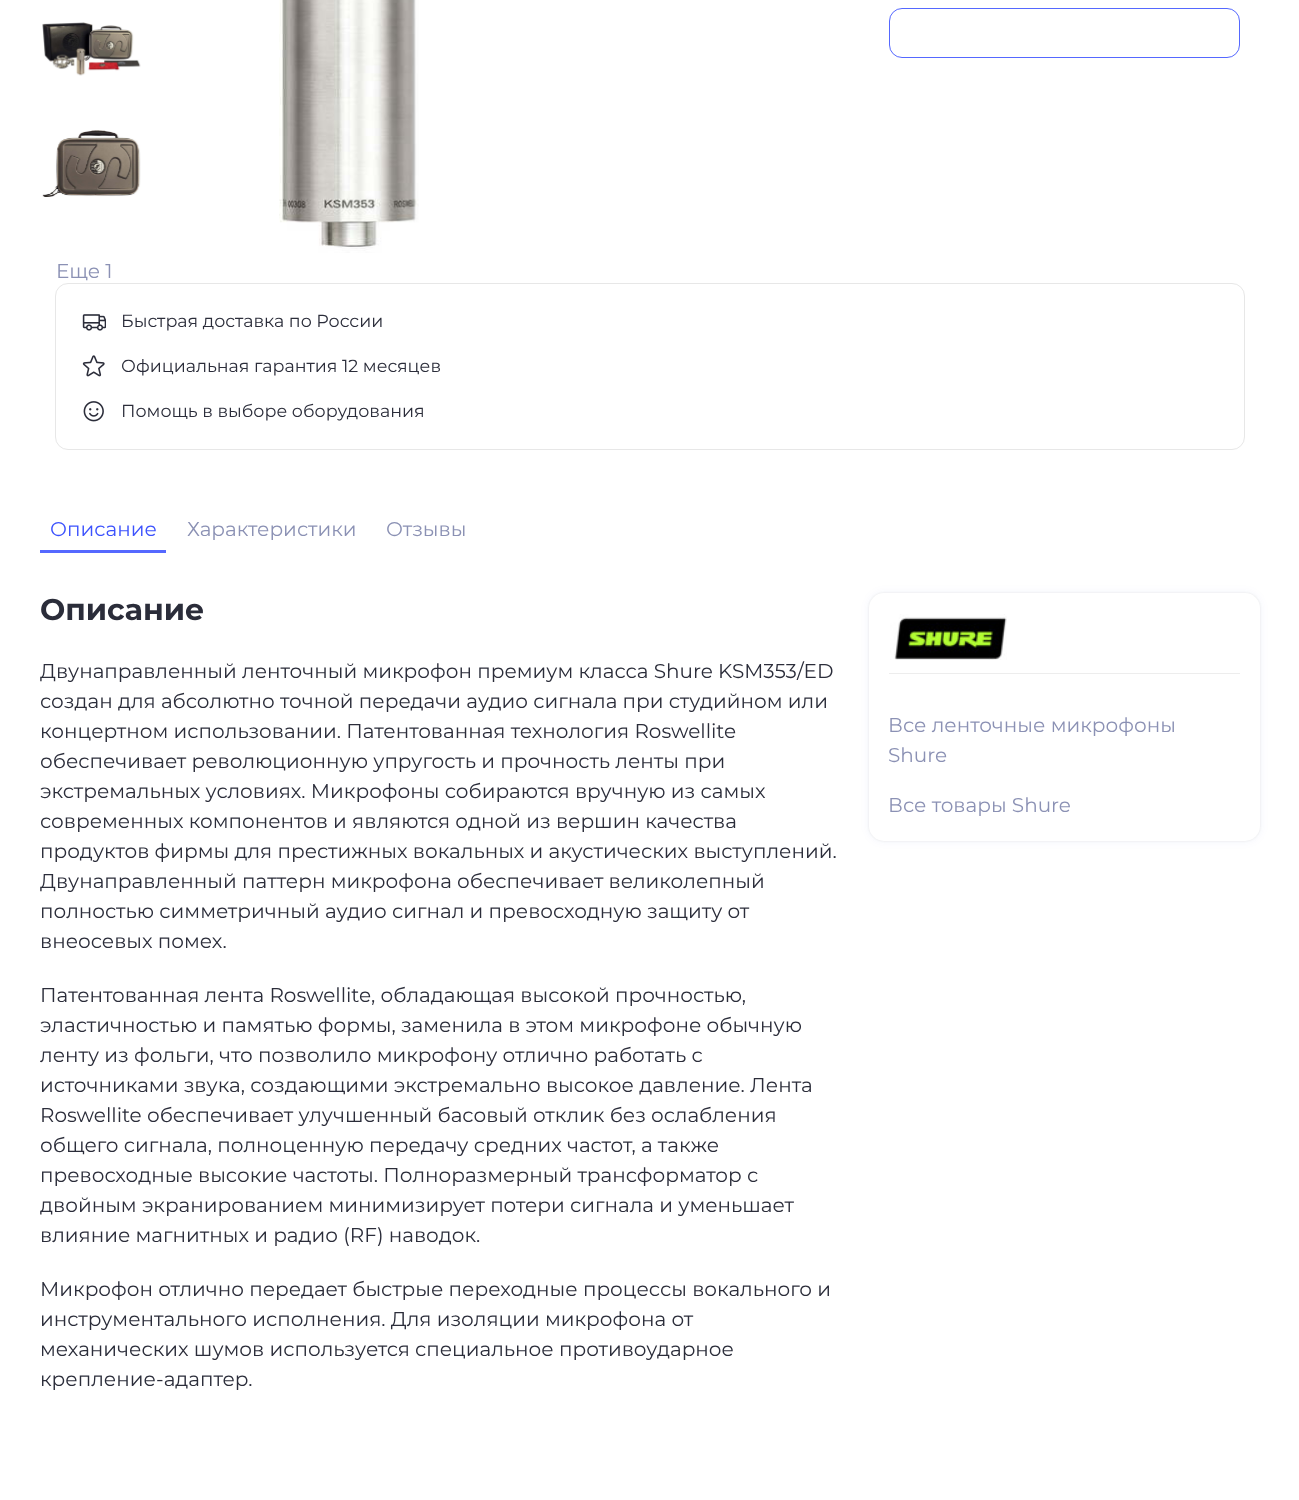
<!DOCTYPE html>
<meta charset="utf-8">
<style>body { margin: 0 } canvas { display: block }</style>
<canvas id="canvas" width="1299" height="1500"></canvas>
<script type="module">
  const canvas = document.getElementById("canvas");
  const g = canvas.getContext("2d");
  g.miterLimit = 4;
  g.fontKerning = "normal";
  function drawText(s, x, y, [font, color]) {
    g.font = font;
    g.fillStyle = color;
    g.fillText(s, x, y);
  }
  function fillBox(x, y, w, h, color) {
    g.fillStyle = color;
    g.fillRect(x, y, w, h);
  }
  function fillRounded(x, y, w, h, r, color) {
    g.fillStyle = color;
    g.beginPath();
    g.roundRect(x, y, w, h, r);
    g.fill();
  }
  async function drawPicture(src, x, y, w, h) {
    const img = new Image();
    img.src = src;
    await img.decode();
    g.drawImage(img, x, y, w, h);
  }

  const s1 = ["20px Montserrat", "#8B91B4"];
  const s2 = ["17.5px Montserrat", "#2B2D3A"];
  const s3 = ["20px Montserrat", "#3C52FD"];
  const s4 = ["bold 30px Montserrat", "#2B2D3A"];
  const s5 = ["20px Montserrat", "#2B2D3A"];

  fillBox(0, 0, 1299, 1500, "#FFFFFF");
  g.beginPath();
  g.roundRect(889.5, 8.5, 350, 49, 12.5);
  g.strokeStyle = "#5568FF";
  g.stroke();
  await drawPicture("pic1.png", 42, 22, 99, 54);
  await drawPicture("pic2.png", 42, 130, 99, 67);
  await drawPicture("pic3.png", 279, 0, 140, 253);
  drawText("Еще 1", 56, 278, s1);
  g.beginPath();
  g.roundRect(55.5, 283.5, 1189, 166, 12.5);
  g.strokeStyle = "#E7E7E7";
  g.stroke();
  await drawPicture("pic4.png", 82, 314, 24, 17);
  drawText("Быстрая доставка по России", 121, 327, s2);
  await drawPicture("pic5.png", 82, 355, 23, 22);
  drawText("Официальная гарантия 12 месяцев", 121, 372, s2);
  await drawPicture("pic6.png", 83, 401, 21, 21);
  drawText("Помощь в выборе оборудования", 121, 417, s2);
  fillBox(40, 550, 126, 3, "#5568FF");
  drawText("Описание", 50, 536, s3);
  drawText("Характеристики", 187, 536, s1);
  drawText("Отзывы", 386, 536, s1);
  drawText("Описание", 40, 620, s4);
  drawText("Двунаправленный ленточный микрофон премиум класса Shure KSM353/ED", 40, 678, s5);
  drawText("создан для абсолютно точной передачи аудио сигнала при студийном или", 40, 708, s5);
  drawText("концертном использовании. Патентованная технология Roswellite", 40, 738, s5);
  drawText("обеспечивает революционную упругость и прочность ленты при", 40, 768, s5);
  drawText("экстремальных условиях. Микрофоны собираются вручную из самых", 40, 798, s5);
  drawText("современных компонентов и являются одной из вершин качества", 40, 828, s5);
  drawText("продуктов фирмы для престижных вокальных и акустических выступлений.", 40, 858, s5);
  drawText("Двунаправленный паттерн микрофона обеспечивает великолепный", 40, 888, s5);
  drawText("полностью симметричный аудио сигнал и превосходную защиту от", 40, 918, s5);
  drawText("внеосевых помех.", 40, 948, s5);
  drawText("Патентованная лента Roswellite, обладающая высокой прочностью,", 40, 1002, s5);
  drawText("эластичностью и памятью формы, заменила в этом микрофоне обычную", 40, 1032, s5);
  drawText("ленту из фольги, что позволило микрофону отлично работать с", 40, 1062, s5);
  drawText("источниками звука, создающими экстремально высокое давление. Лента", 40, 1092, s5);
  drawText("Roswellite обеспечивает улучшенный басовый отклик без ослабления", 40, 1122, s5);
  drawText("общего сигнала, полноценную передачу средних частот, а также", 40, 1152, s5);
  drawText("превосходные высокие частоты. Полноразмерный трансформатор с", 40, 1182, s5);
  drawText("двойным экранированием минимизирует потери сигнала и уменьшает", 40, 1212, s5);
  drawText("влияние магнитных и радио (RF) наводок.", 40, 1242, s5);
  drawText("Микрофон отлично передает быстрые переходные процессы вокального и", 40, 1296, s5);
  drawText("инструментального исполнения. Для изоляции микрофона от", 40, 1326, s5);
  drawText("механических шумов используется специальное противоударное", 40, 1356, s5);
  drawText("крепление-адаптер.", 40, 1386, s5);
  g.fillStyle = "rgba(17, 35, 192, 0.05)";
  g.filter = "blur(5px)";
  g.beginPath();
  g.roundRect(869, 593, 391, 248, 15);
  g.fill();
  g.filter = "none";
  g.fillStyle = "#E7E7E7";
  g.filter = "blur(1px)";
  g.beginPath();
  g.roundRect(869, 593, 391, 248, 15);
  g.fill();
  g.filter = "none";
  fillRounded(869, 593, 391, 248, 15, "#FFFFFF");
  await drawPicture("pic7.png", 890, 614, 117, 46);
  fillBox(889, 673, 351, 1, "#EDEDED");
  drawText("Все ленточные микрофоны", 888, 732, s1);
  drawText("Shure", 888, 762, s1);
  drawText("Все товары Shure", 888, 812, s1);
</script>
